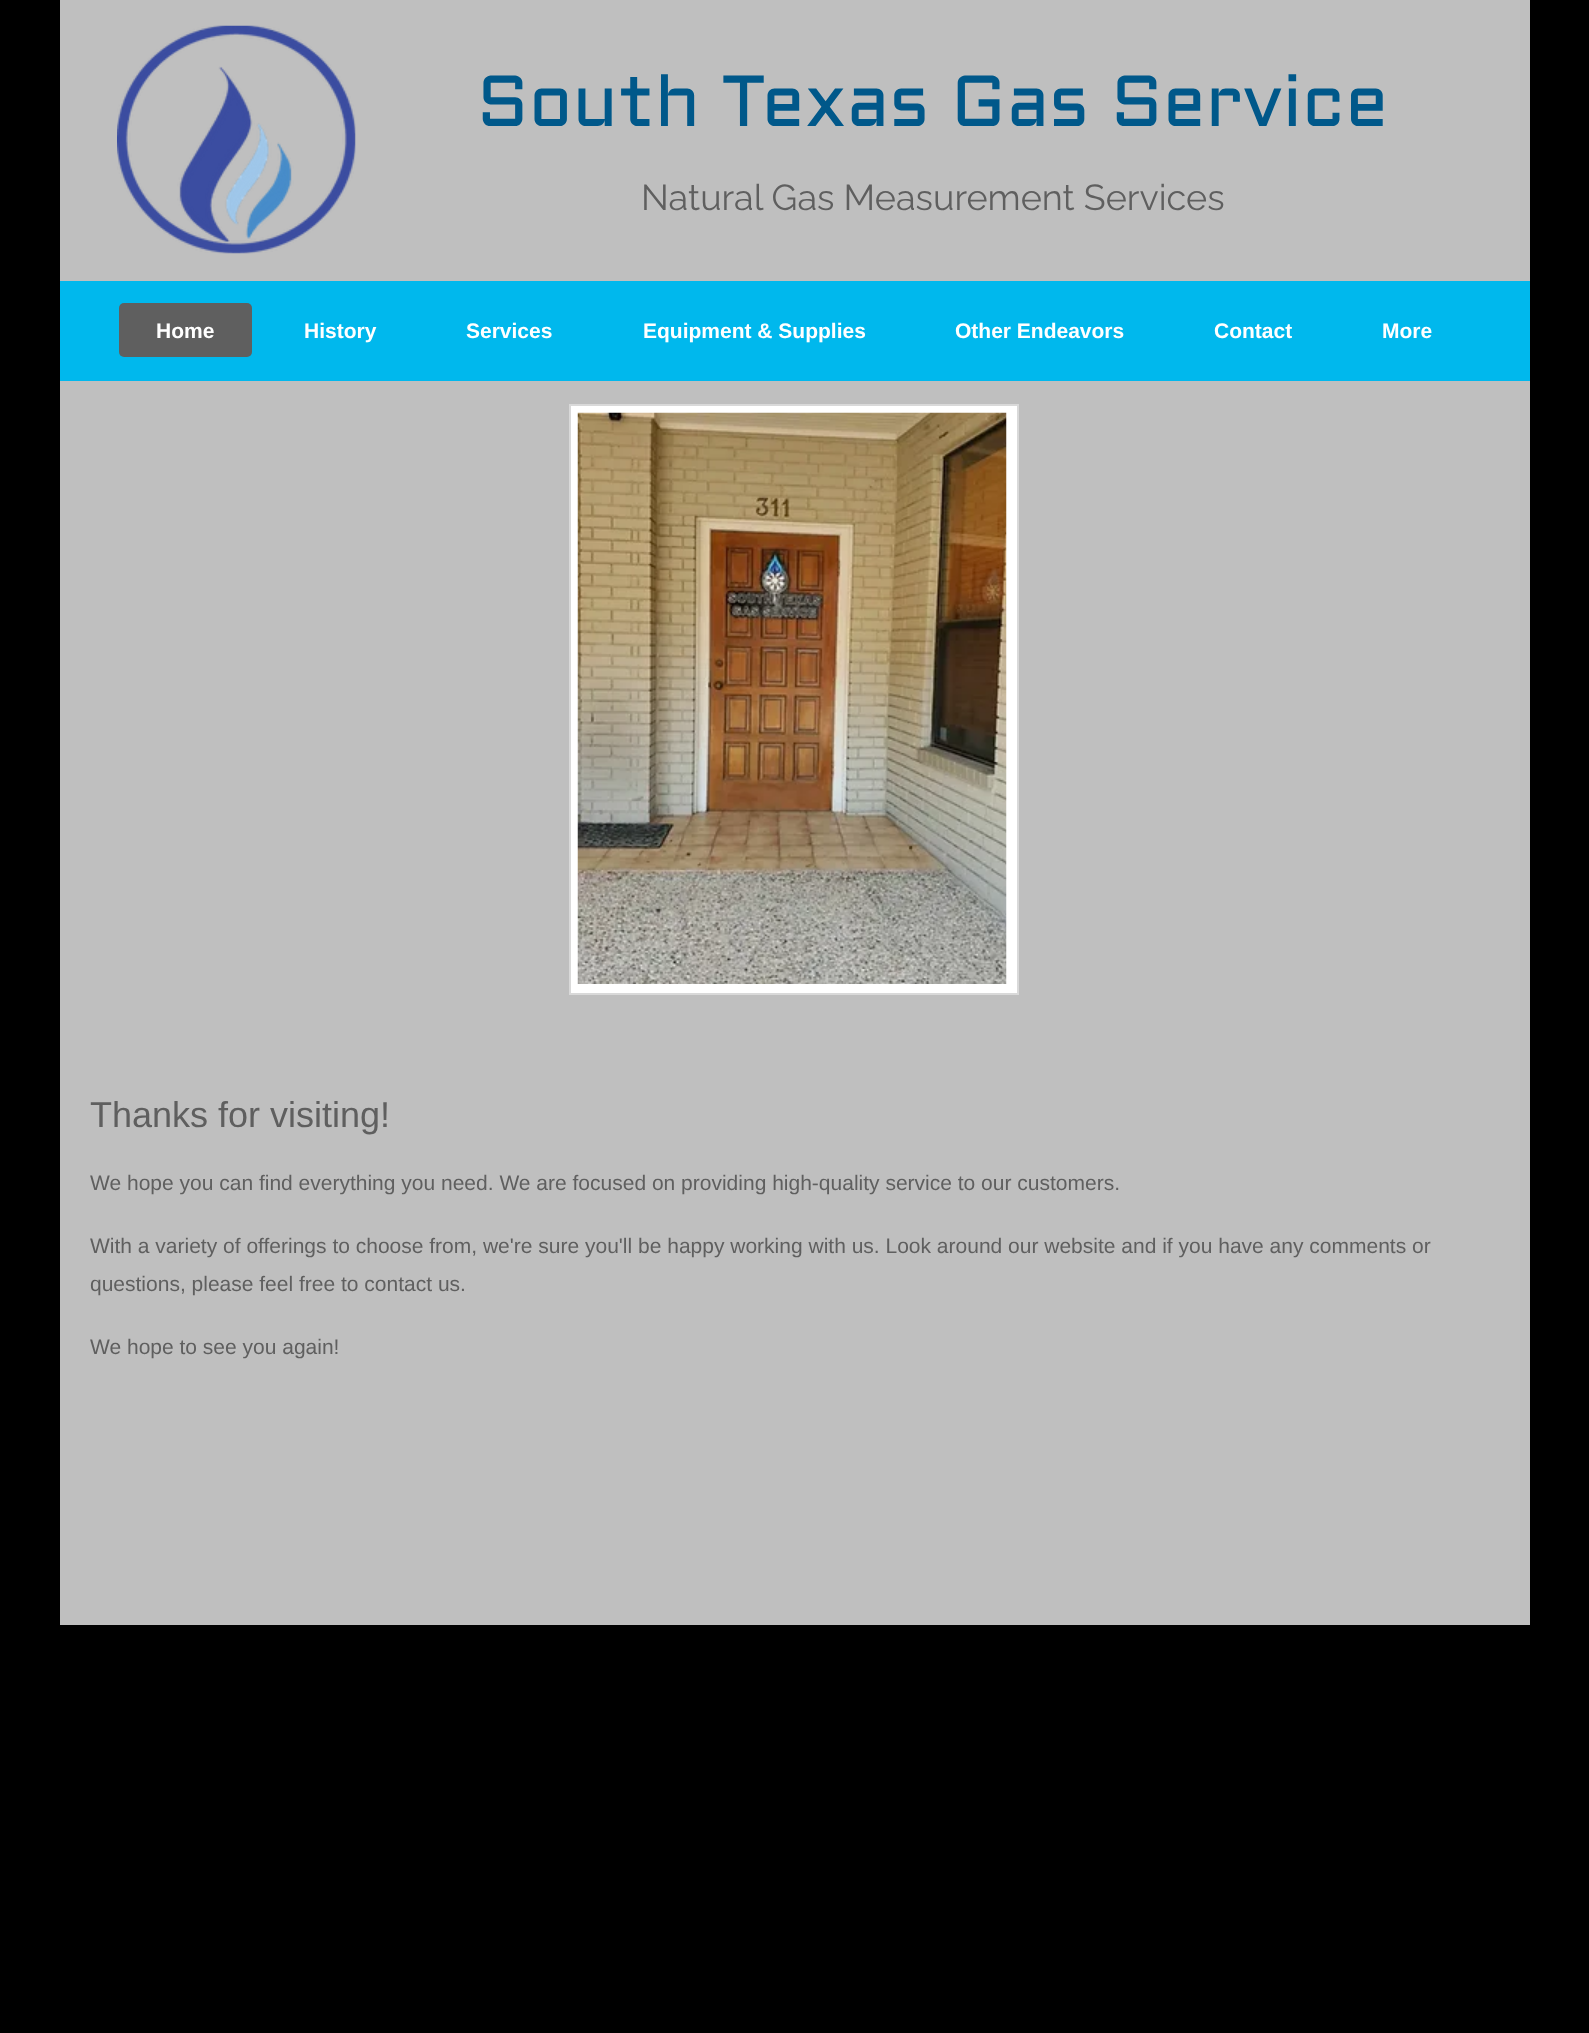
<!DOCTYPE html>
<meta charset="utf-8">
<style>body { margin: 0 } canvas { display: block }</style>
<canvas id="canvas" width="1589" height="2033"></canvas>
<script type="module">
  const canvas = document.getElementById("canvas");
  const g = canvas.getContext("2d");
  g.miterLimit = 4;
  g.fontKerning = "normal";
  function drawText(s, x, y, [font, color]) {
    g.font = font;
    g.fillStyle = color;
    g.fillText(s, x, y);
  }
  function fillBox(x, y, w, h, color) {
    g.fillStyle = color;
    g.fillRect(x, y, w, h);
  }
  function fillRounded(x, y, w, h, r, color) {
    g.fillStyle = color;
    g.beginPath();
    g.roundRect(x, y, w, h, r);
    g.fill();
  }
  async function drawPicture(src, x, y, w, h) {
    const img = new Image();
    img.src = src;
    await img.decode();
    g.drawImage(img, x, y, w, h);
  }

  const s1 = ["72px Aldrich", "#00588A"];
  const s2 = ["36px Raleway", "#5F5F5F"];
  const s3 = ["bold 21px Liberation Sans", "#FFFFFF"];
  const s4 = ["36px Liberation Sans", "#5F5F5F"];
  const s5 = ["21px Liberation Sans", "#5F5F5F"];

  fillBox(0, 0, 1589, 2033, "#000000");
  fillBox(60, 0, 1470, 281, "#BFBFBF");
  await drawPicture("pic1.png", 117, 25, 239, 229);
  drawText("South Texas Gas Service", 477, 126, s1);
  drawText("Natural Gas Measurement Services", 641, 210, s2);
  fillBox(60, 281, 1470, 100, "#00B8ED");
  fillRounded(119, 303, 133, 54, 5, "#5F5F5F");
  drawText("Home", 156, 338, s3);
  drawText("History", 304, 338, s3);
  drawText("Services", 466, 338, s3);
  drawText("Equipment & Supplies", 643, 338, s3);
  drawText("Other Endeavors", 955, 338, s3);
  drawText("Contact", 1214, 338, s3);
  drawText("More", 1382, 338, s3);
  fillBox(60, 381, 1470, 1244, "#BFBFBF");
  g.fillStyle = "#FFFFFF";
  g.beginPath();
  g.rect(570, 405, 448, 589);
  g.fill();
  g.strokeStyle = "#D9D9D9";
  g.lineWidth = 2;
  g.stroke();
  await drawPicture("pic2.png", 577, 412, 430, 572);
  drawText("Thanks for visiting!", 90, 1127, s4);
  drawText("We hope you can find everything you need. We are focused on providing high-quality service to our customers.", 90, 1190, s5);
  drawText("With a variety of offerings to choose from, we're sure you'll be happy working with us. Look around our website and if you have any comments or", 90, 1253, s5);
  drawText("questions, please feel free to contact us.", 90, 1291, s5);
  drawText("We hope to see you again!", 90, 1354, s5);
</script>
